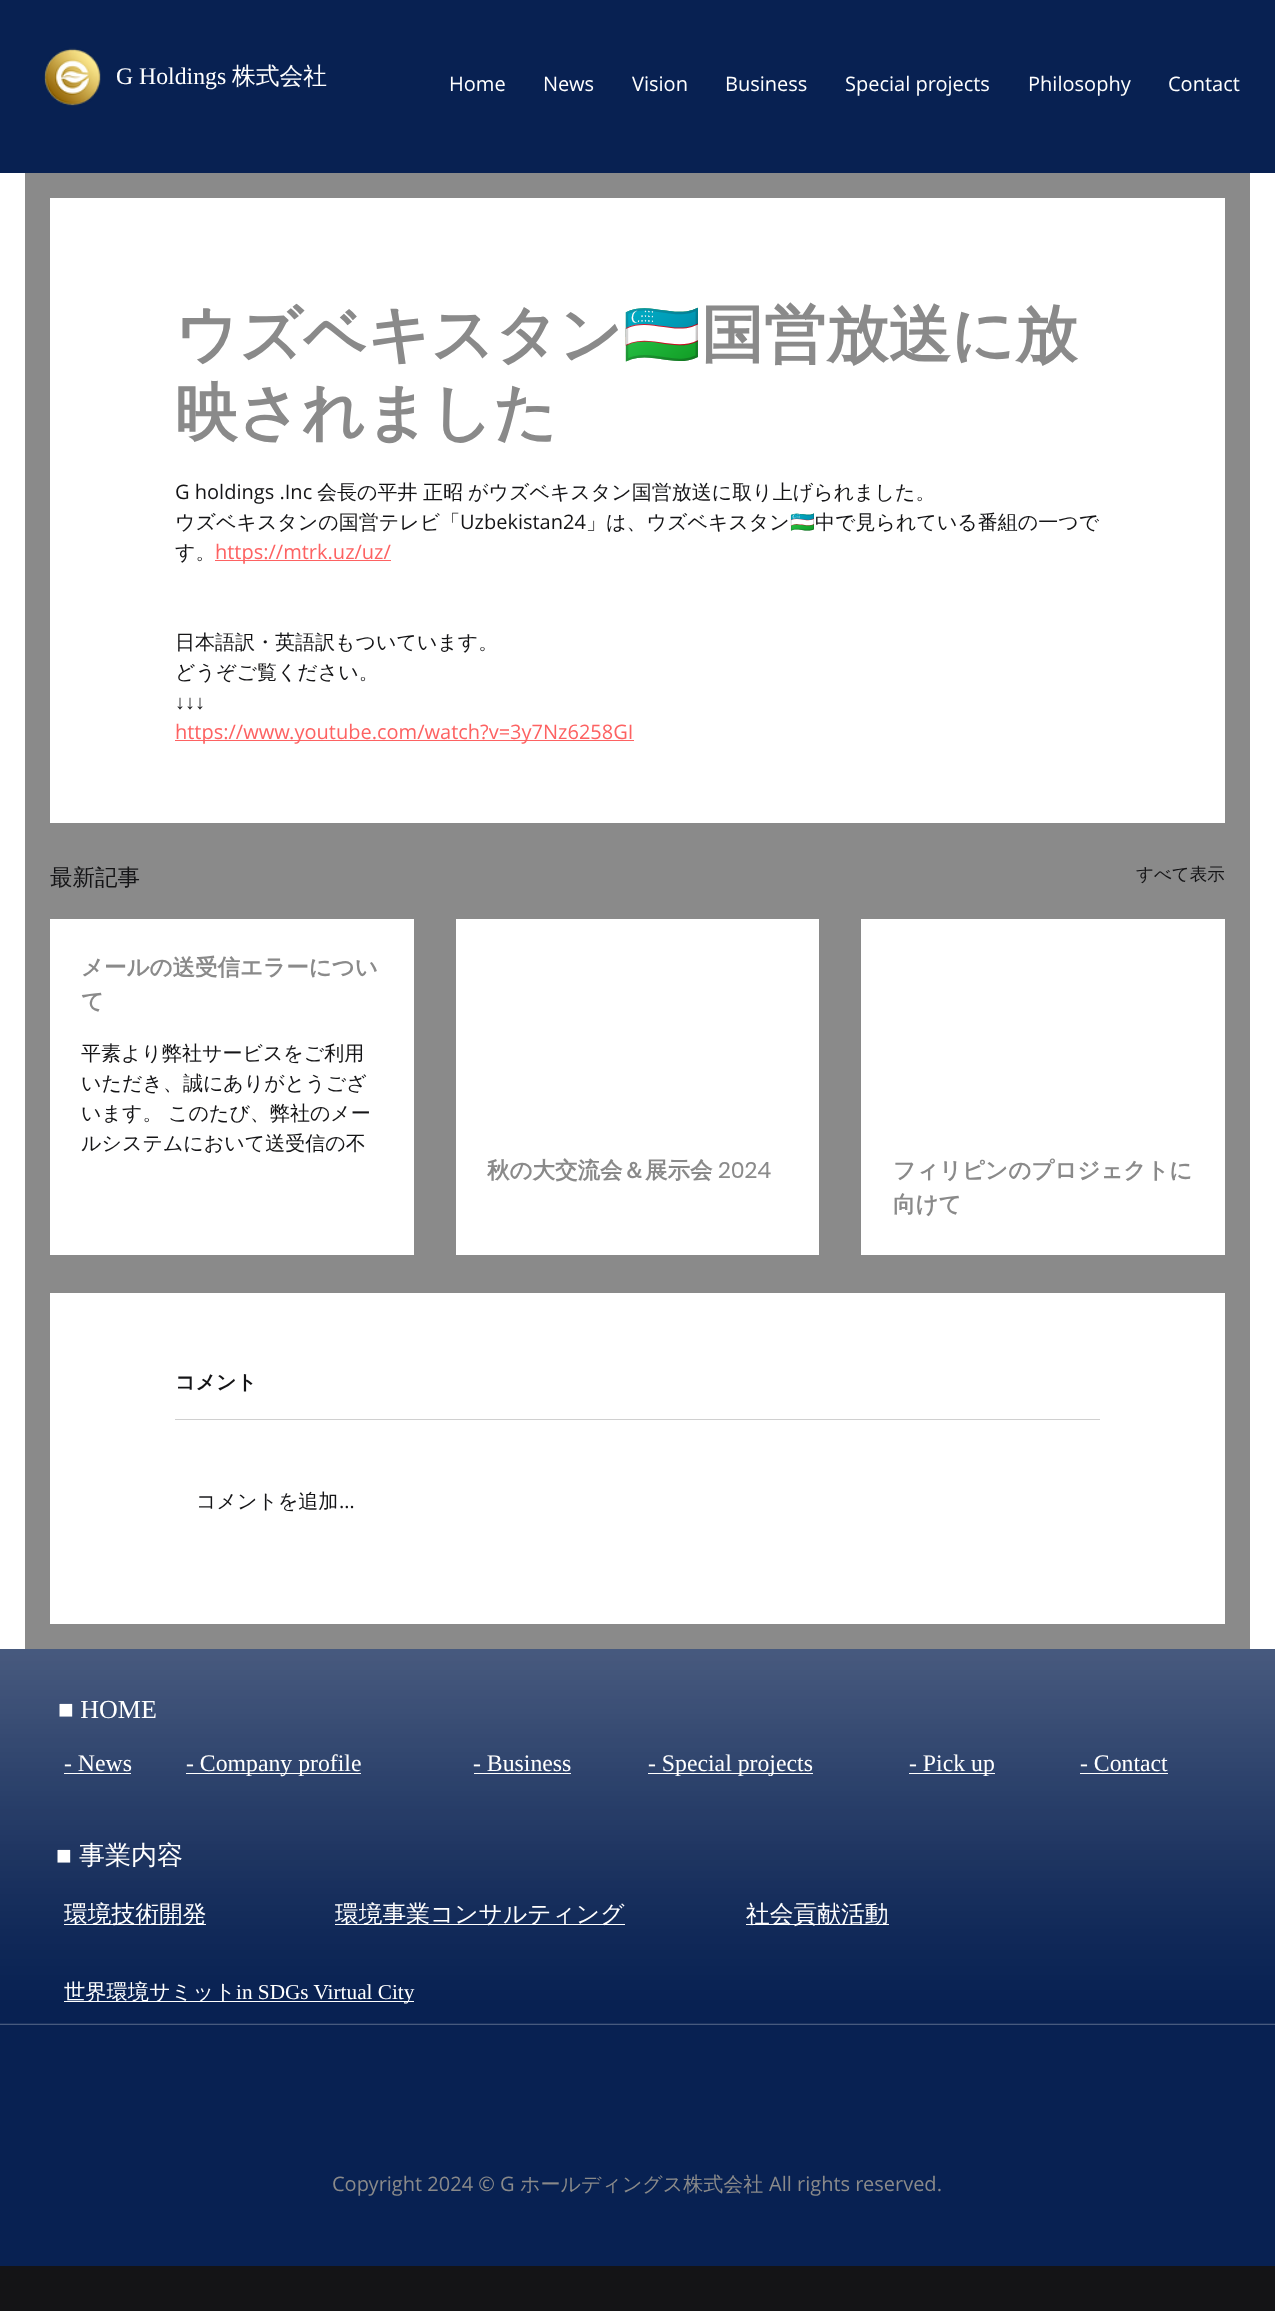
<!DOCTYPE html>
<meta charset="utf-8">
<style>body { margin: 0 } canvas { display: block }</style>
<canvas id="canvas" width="1275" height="2311"></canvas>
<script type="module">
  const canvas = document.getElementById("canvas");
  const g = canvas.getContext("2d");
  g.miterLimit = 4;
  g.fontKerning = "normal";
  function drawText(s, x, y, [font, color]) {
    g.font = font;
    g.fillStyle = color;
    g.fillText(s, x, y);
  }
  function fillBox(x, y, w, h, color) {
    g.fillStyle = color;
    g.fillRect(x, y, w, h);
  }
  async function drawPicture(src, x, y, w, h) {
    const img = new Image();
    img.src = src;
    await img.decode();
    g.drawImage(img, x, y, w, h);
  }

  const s1 = ["23.75px Liberation Serif", "#FFFFFF"];
  const s2 = ["500 23.75px WenQuanYi Zen Hei", "#FFFFFF"];
  const s3 = ["20px Open Sans", "#FFFFFF"];
  const s4 = ["bold 62.5px WenQuanYi Zen Hei", "#8A8A8A"];
  const s5 = ["bold 62.5px Noto Color Emoji", "#8A8A8A"];
  const s6 = ["20px Open Sans", "#141416"];
  const s7 = ["500 20px WenQuanYi Zen Hei", "#141416"];
  const s8 = ["20px Noto Color Emoji", "#141416"];
  const s9 = ["20px Open Sans", "#FD6262"];
  const s10 = ["20px Liberation Sans", "#141416"];
  const s11 = ["500 22.5px WenQuanYi Zen Hei", "#141416"];
  const s12 = ["500 17.5px WenQuanYi Zen Hei", "#141416"];
  const s13 = ["bold 22.5px WenQuanYi Zen Hei", "#8A8A8A"];
  const s14 = ["22.5px Poppins", "#8A8A8A"];
  const s15 = ["bold 20px WenQuanYi Zen Hei", "#141416"];
  const s16 = ["26px Liberation Serif", "#FFFFFF"];
  const s17 = ["500 26px WenQuanYi Zen Hei", "#FFFFFF"];
  const s18 = ["500 21.25px WenQuanYi Zen Hei", "#FFFFFF"];
  const s19 = ["21.25px Liberation Serif", "#FFFFFF"];
  const s20 = ["20px Open Sans", "#8A8A8A"];
  const s21 = ["500 20px WenQuanYi Zen Hei", "#8A8A8A"];

  fillBox(0, 0, 1275, 2311, "#141416");
  fillBox(0, 0, 1275, 173, "#082152");
  await drawPicture("pic1.png", 44, 48, 57, 58);
  drawText("G Holdings", 116, 84, s1);
  drawText("株式会社", 232, 84, s2);
  drawText("Home", 449, 91, s3);
  drawText("News", 543, 91, s3);
  drawText("Vision", 632, 91, s3);
  drawText("Business", 725, 91, s3);
  drawText("Special projects", 845, 91, s3);
  drawText("Philosophy", 1028, 91, s3);
  drawText("Contact", 1168, 91, s3);
  fillBox(0, 173, 1275, 1476, "#FFFFFF");
  fillBox(25, 173, 1225, 1476, "#8A8A8A");
  fillBox(50, 198, 1175, 625, "#FFFFFF");
  drawText("ウズベキスタン", 175, 356, s4);
  drawText("🇺🇿", 623, 356, s5);
  drawText("国営放送に放", 701, 356, s4);
  drawText("映されました", 175, 434, s4);
  drawText("G holdings .Inc", 175, 499, s6);
  drawText("会長の平井", 317, 499, s7);
  drawText("正昭", 423, 499, s7);
  drawText("がウズベキスタン国営放送に取り上げられました。", 468, 499, s7);
  drawText("ウズベキスタンの国営テレビ「", 175, 529, s7);
  drawText("Uzbekistan24", 460, 529, s6);
  drawText("」は、ウズベキスタン", 586, 529, s7);
  drawText("🇺🇿", 790, 529, s8);
  drawText("中で見られている番組の一つで", 815, 529, s7);
  drawText("す。", 175, 559, s7);
  fillBox(215, 560, 176, 1, "#FD6262");
  drawText("https://mtrk.uz/uz/", 215, 559, s9);
  drawText("日本語訳・英語訳もついています。", 175, 649, s7);
  drawText("どうぞご覧ください。", 175, 679, s7);
  drawText("↓↓↓", 175, 709, s10);
  fillBox(175, 740, 459, 1, "#FD6262");
  drawText("https://www.youtube.com/watch?v=3y7Nz6258GI", 175, 739, s9);
  drawText("最新記事", 50, 885, s11);
  drawText("すべて表示", 1136, 880, s12);
  fillBox(50, 919, 364, 336, "#FFFFFF");
  drawText("メールの送受信エラーについ", 81, 975, s13);
  drawText("て", 81, 1009, s13);
  drawText("平素より弊社サービスをご利用", 81, 1060, s7);
  drawText("いただき、誠にありがとうござ", 81, 1090, s7);
  drawText("います。", 81, 1120, s7);
  drawText("このたび、弊社のメー", 168, 1120, s7);
  drawText("ルシステムにおいて送受信の不", 81, 1150, s7);
  fillBox(456, 919, 363, 336, "#FFFFFF");
  drawText("秋の大交流会＆展示会", 487, 1178, s13);
  drawText("2024", 718, 1178, s14);
  fillBox(861, 919, 364, 336, "#FFFFFF");
  drawText("フィリピンのプロジェクトに", 893, 1178, s13);
  drawText("向けて", 893, 1212, s13);
  fillBox(50, 1293, 1175, 331, "#FFFFFF");
  drawText("コメント", 175, 1389, s15);
  fillBox(175, 1419, 925, 1, "#D0D0D0");
  drawText("コメントを追加", 196, 1508, s7);
  drawText("…", 339, 1508, s6);
  fillBox(0, 1649, 1275, 617, "#082152");
  await drawPicture("pic2.png", 0, 1649, 1275, 376);
  drawText("■ HOME", 58, 1718, s16);
  drawText("- News", 64, 1771, s1);
  fillBox(64, 1773, 67, 1, "#FFFFFF");
  fillBox(186, 1773, 175, 1, "#FFFFFF");
  drawText("- Company profile", 186, 1771, s1);
  drawText("- Business", 473, 1771, s1);
  fillBox(474, 1773, 97, 1, "#FFFFFF");
  fillBox(648, 1773, 165, 1, "#FFFFFF");
  drawText("- Special projects", 648, 1771, s1);
  fillBox(909, 1773, 86, 1, "#FFFFFF");
  drawText("- Pick up", 909, 1771, s1);
  drawText("- Contact", 1080, 1771, s1);
  fillBox(1080, 1773, 88, 1, "#FFFFFF");
  drawText("■", 56, 1864, s16);
  drawText("事業内容", 79, 1864, s17);
  fillBox(64, 1924, 142, 1, "#FFFFFF");
  drawText("環境技術開発", 64, 1922, s2);
  fillBox(335, 1924, 290, 1, "#FFFFFF");
  drawText("環境事業コンサルティング", 335, 1922, s2);
  fillBox(746, 1924, 143, 1, "#FFFFFF");
  drawText("社会貢献活動", 746, 1922, s2);
  fillBox(64, 2001, 350, 1, "#FFFFFF");
  drawText("世界環境サミット", 64, 1999, s18);
  drawText("in SDGs Virtual City", 236, 1999, s19);
  drawText("Copyright 2024 © G", 332, 2191, s20);
  drawText("ホールディングス株式会社", 520, 2191, s21);
  drawText("All rights reserved.", 769, 2191, s20);
</script>
